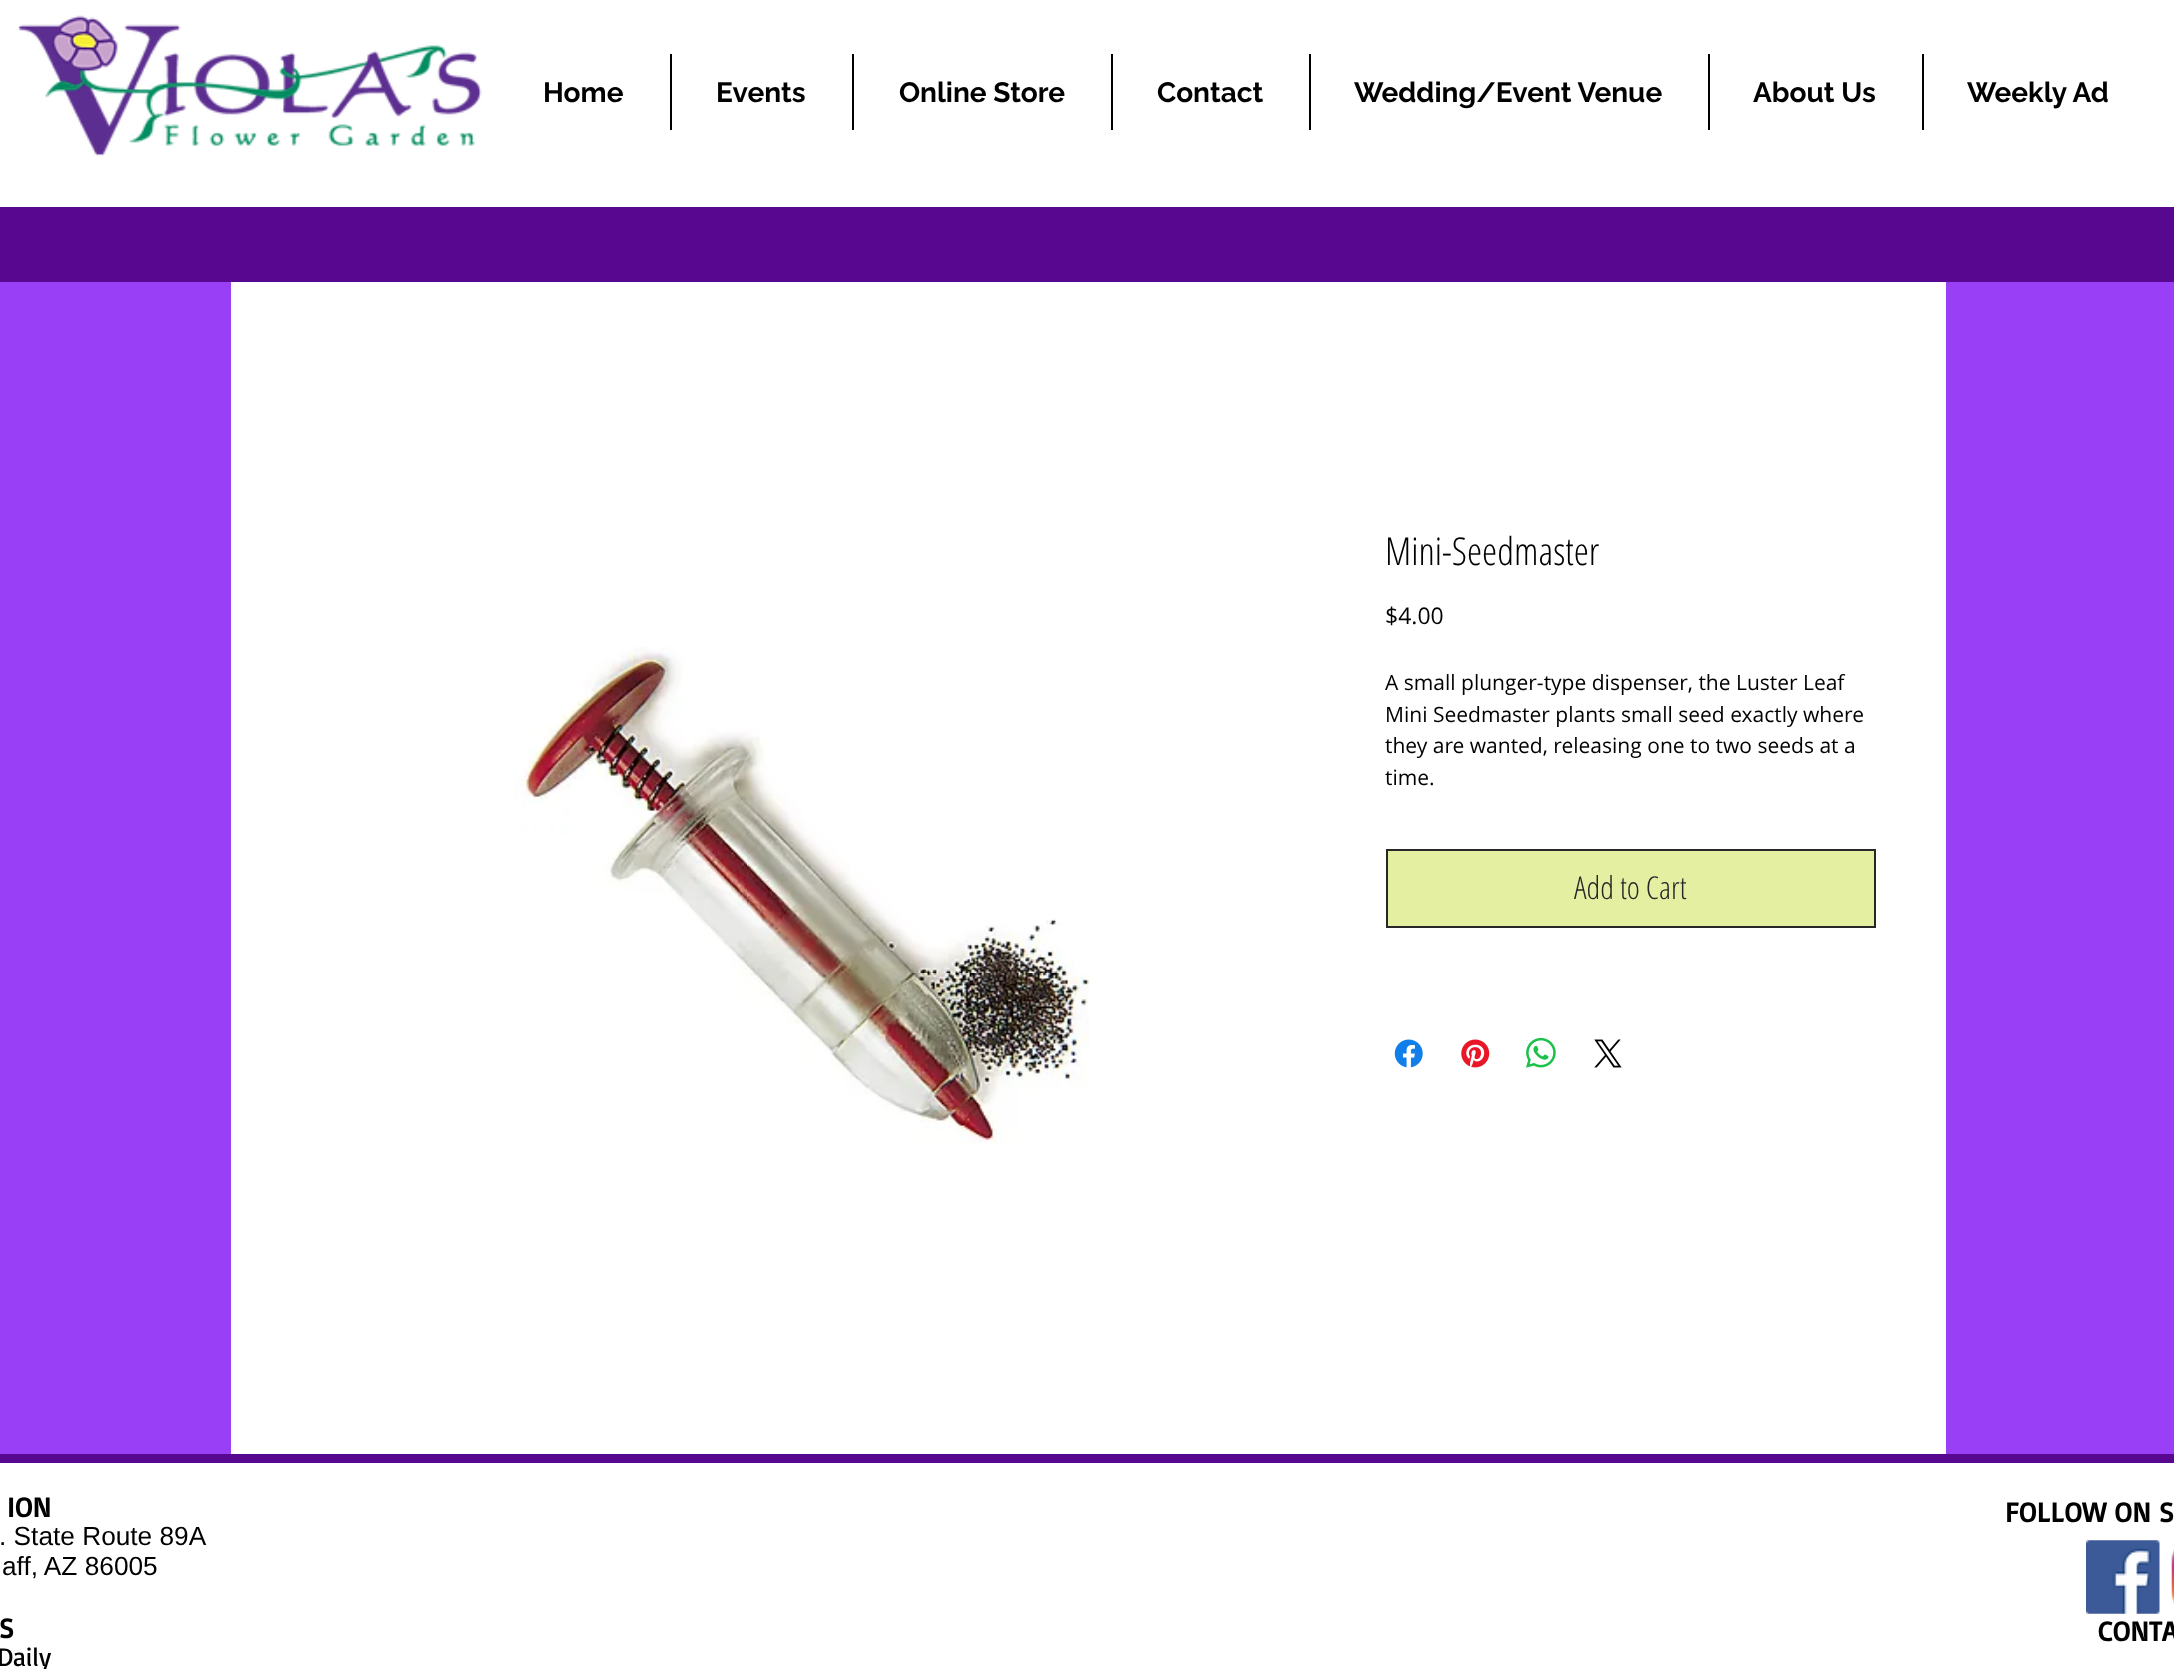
<!DOCTYPE html>
<meta charset="utf-8">
<style>body { margin: 0 } canvas { display: block }</style>
<canvas id="canvas" width="2174" height="1669"></canvas>
<script type="module">
  const canvas = document.getElementById("canvas");
  const g = canvas.getContext("2d");
  g.miterLimit = 4;
  g.fontKerning = "normal";
  function drawText(s, x, y, [font, color]) {
    g.font = font;
    g.fillStyle = color;
    g.fillText(s, x, y);
  }
  function fillBox(x, y, w, h, color) {
    g.fillStyle = color;
    g.fillRect(x, y, w, h);
  }
  async function drawPicture(src, x, y, w, h) {
    const img = new Image();
    img.src = src;
    await img.decode();
    g.drawImage(img, x, y, w, h);
  }

  const s1 = ["bold 28px Raleway", "#000000"];
  const s2 = ["300 38.5px Open Sans Condensed", "#000000"];
  const s3 = ["23px Open Sans", "#000000"];
  const s4 = ["21px Open Sans", "#000000"];
  const s5 = ["300 31.5px Open Sans Condensed", "#272727"];
  const s6 = ["bold 28px Basic", "#000000"];
  const s7 = ["26.25px Liberation Sans", "#000000"];
  const s8 = ["26.25px Basic", "#000000"];

  fillBox(0, 0, 2174, 1669, "#993FF6");
  fillBox(0, 0, 2174, 207, "#FFFFFF");
  await drawPicture("pic1.png", 18, 15, 464, 142);
  drawText("Home", 543, 102, s1);
  fillBox(670, 54, 2, 76, "#000000");
  drawText("Events", 716, 102, s1);
  fillBox(852, 54, 2, 76, "#000000");
  drawText("Online Store", 899, 102, s1);
  fillBox(1111, 54, 2, 76, "#000000");
  drawText("Contact", 1157, 102, s1);
  fillBox(1309, 54, 2, 76, "#000000");
  drawText("Wedding/Event Venue", 1354, 102, s1);
  fillBox(1708, 54, 2, 76, "#000000");
  drawText("About Us", 1753, 102, s1);
  fillBox(1922, 54, 2, 76, "#000000");
  drawText("Weekly Ad", 1967, 102, s1);
  fillBox(0, 207, 2174, 75, "#580791");
  fillBox(231, 282, 1715, 1172, "#FFFFFF");
  await drawPicture("pic2.png", 515, 647, 575, 497);
  drawText("Mini-Seedmaster", 1385, 565, s2);
  drawText("$4.00", 1385, 624, s3);
  drawText("A small plunger-type dispenser, the Luster Leaf", 1385, 690, s4);
  drawText("Mini Seedmaster plants small seed exactly where", 1385, 722, s4);
  drawText("they are wanted, releasing one to two seeds at a", 1385, 753, s4);
  drawText("time.", 1385, 785, s4);
  g.fillStyle = "#E5EFA2";
  g.beginPath();
  g.rect(1387, 850, 488, 77);
  g.fill();
  g.strokeStyle = "#272727";
  g.lineWidth = 2;
  g.stroke();
  drawText("Add to Cart", 1574, 899, s5);
  await drawPicture("pic3.png", 1394, 1039, 29, 29);
  await drawPicture("pic4.png", 1461, 1039, 29, 29);
  await drawPicture("pic5.png", 1526, 1037, 30, 31);
  await drawPicture("pic6.png", 1594, 1039, 28, 29);
  fillBox(0, 1463, 2174, 206, "#FFFFFF");
  fillBox(0, 1454, 2174, 9, "#580791");
  g.letterSpacing = "0.25px";
  drawText("ION", 7, 1517, s6);
  g.letterSpacing = "0px";
  drawText(". State Route 89A", -1, 1545, s7);
  drawText("aff, AZ 86005", 2, 1575, s7);
  g.letterSpacing = "0.25px";
  drawText("FOLLOW ON S", 2005, 1522, s6);
  await drawPicture("pic7.png", 2086, 1540, 74, 74);
  await drawPicture("pic8.png", 2171, 1549, 3, 55);
  g.letterSpacing = "0px";
  drawText("S", -1, 1638, s6);
  drawText("Daily", -3, 1666, s8);
  drawText("CONTA", 2098, 1641, s6);
</script>
